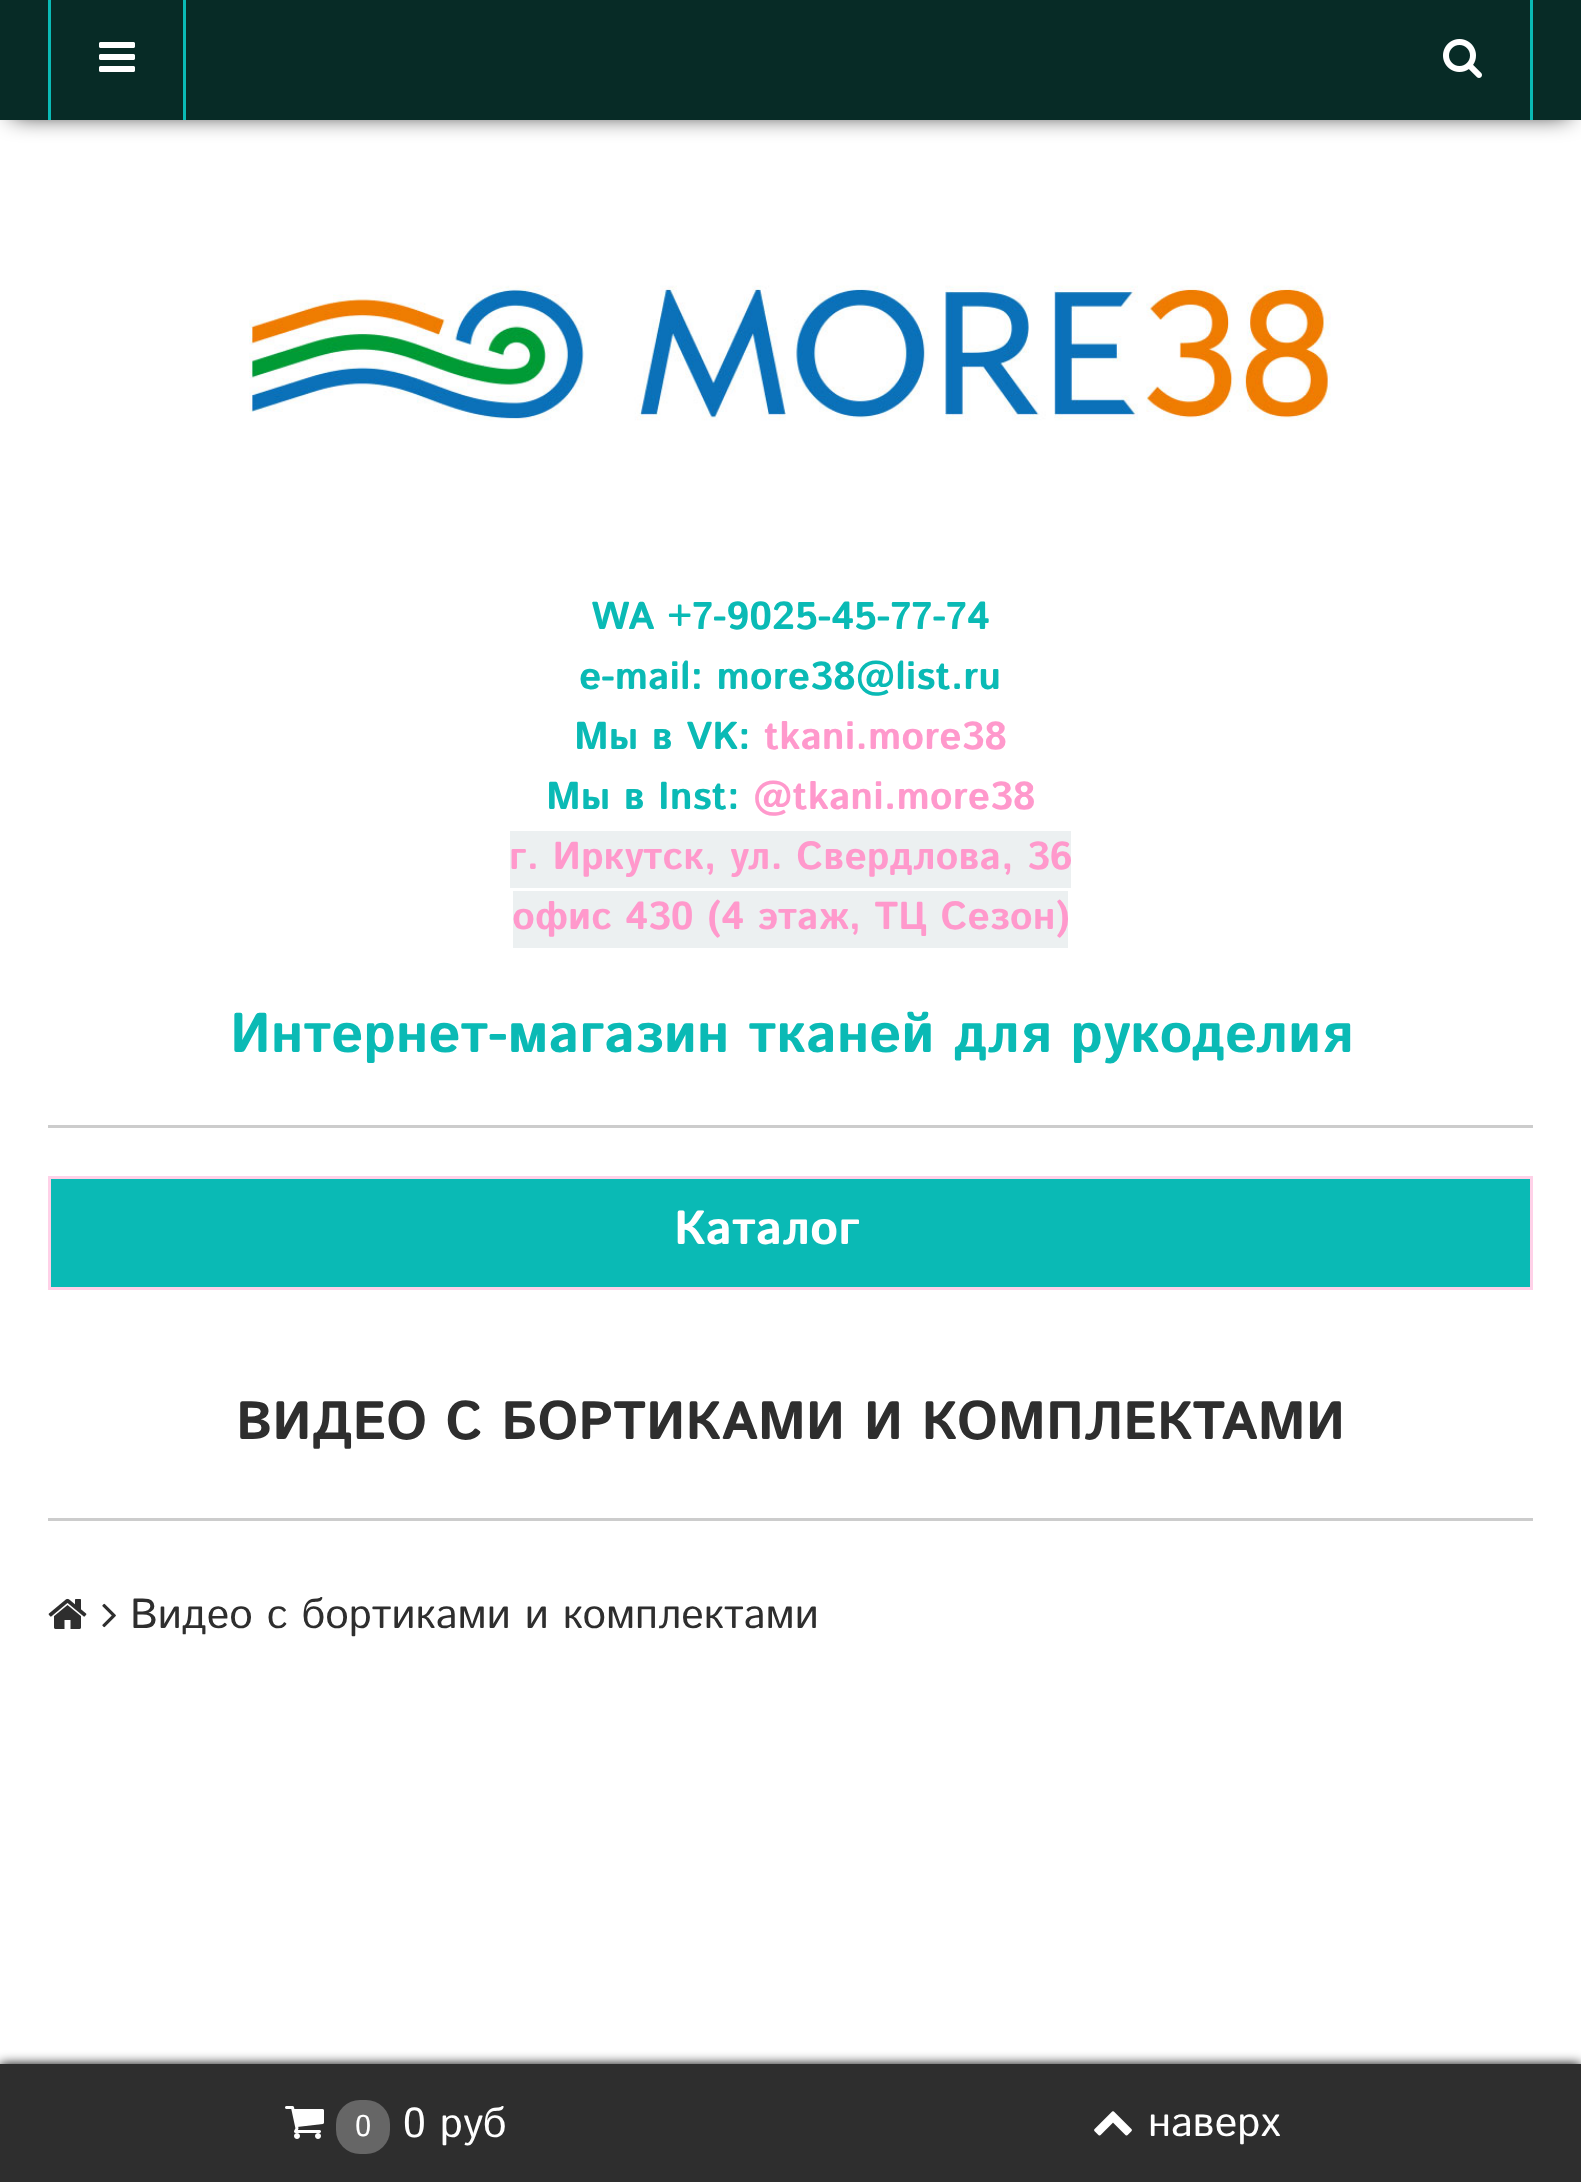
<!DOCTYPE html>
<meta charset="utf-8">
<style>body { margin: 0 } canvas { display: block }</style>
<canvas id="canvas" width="1581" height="2182"></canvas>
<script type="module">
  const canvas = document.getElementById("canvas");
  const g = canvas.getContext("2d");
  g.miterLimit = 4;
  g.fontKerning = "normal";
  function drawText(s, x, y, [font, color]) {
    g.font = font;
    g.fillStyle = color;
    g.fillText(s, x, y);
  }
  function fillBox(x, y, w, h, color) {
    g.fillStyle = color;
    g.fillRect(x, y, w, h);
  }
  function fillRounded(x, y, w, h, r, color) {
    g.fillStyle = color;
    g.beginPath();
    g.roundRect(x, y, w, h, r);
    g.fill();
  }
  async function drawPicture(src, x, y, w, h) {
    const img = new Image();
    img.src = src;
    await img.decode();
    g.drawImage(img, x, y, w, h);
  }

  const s1 = ["bold 39px Istok Web", "#0ABAB5"];
  const s2 = ["bold 39px Istok Web", "#FF99CC"];
  const s3 = ["bold 56px Istok Web", "#0ABAB5"];
  const s4 = ["bold 48px Istok Web", "#FFFFFF"];
  const s5 = ["bold 54px Istok Web", "#2E2E2E"];
  const s6 = ["42px Istok Web", "#2E2E2E"];
  const s7 = ["30px Istok Web", "#FFFFFF"];
  const s8 = ["42px Istok Web", "#FFFFFF"];

  fillBox(0, 0, 1581, 2182, "#FFFFFF");
  g.fillStyle = "#000000";
  g.filter = "blur(12px)";
  g.beginPath();
  g.rect(12, 18, 1557, 96);
  g.fill();
  g.filter = "none";
  fillBox(0, 0, 1581, 120, "#072B26");
  fillBox(183, 0, 3, 120, "#0ABAB5");
  fillBox(48, 0, 3, 120, "#0ABAB5");
  await drawPicture("pic1.png", 99, 42, 36, 30);
  fillBox(1530, 0, 3, 120, "#0ABAB5");
  await drawPicture("pic2.png", 1443, 39, 39, 39);
  await drawPicture("pic3.png", 249, 285, 1082, 136);
  drawText("WA +7-9025-45-77-74", 591, 629, s1);
  drawText("e-mail: more38@list.ru", 579, 689, s1);
  drawText("Мы в VK:", 574, 749, s1);
  drawText("tkani.more38", 764, 749, s2);
  drawText("Мы в Inst:", 546, 809, s1);
  drawText("@tkani.more38", 753, 809, s2);
  fillBox(510, 831, 561, 57, "#ECF0F1");
  drawText("г. Иркутск, ул. Свердлова, 36", 509, 869, s2);
  fillBox(513, 891, 555, 57, "#ECF0F1");
  drawText("офис 430 (4 этаж, ТЦ Сезон)", 512, 929, s2);
  drawText("Интернет-магазин тканей для рукоделия", 230, 1052, s3);
  fillBox(48, 1125, 1485, 3, "#CCCCCC");
  fillBox(48, 1176, 1485, 114, "#FFD1E8");
  fillBox(51, 1179, 1479, 108, "#0ABAB5");
  drawText("Каталог", 674, 1244, s4);
  fillBox(48, 1518, 1485, 3, "#CCCCCC");
  drawText("ВИДЕО С БОРТИКАМИ И КОМПЛЕКТАМИ", 236, 1439, s5);
  await drawPicture("pic4.png", 48, 1598, 39, 31);
  await drawPicture("pic5.png", 102, 1603, 14, 25);
  drawText("Видео с бортиками и комплектами", 130, 1628, s6);
  g.fillStyle = "#000000";
  g.filter = "blur(6px)";
  g.beginPath();
  g.rect(0, 2064, 1581, 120);
  g.fill();
  g.filter = "none";
  fillBox(0, 2064, 1581, 118, "#2E2E2E");
  await drawPicture("pic6.png", 285, 2106, 39, 33);
  fillRounded(336, 2100, 54, 54, 24, "#666666");
  drawText("0", 355, 2136, s7);
  drawText("0 руб", 403, 2137, s8);
  await drawPicture("pic7.png", 1094, 2111, 38, 25);
  drawText("наверх", 1148, 2136, s8);
</script>
